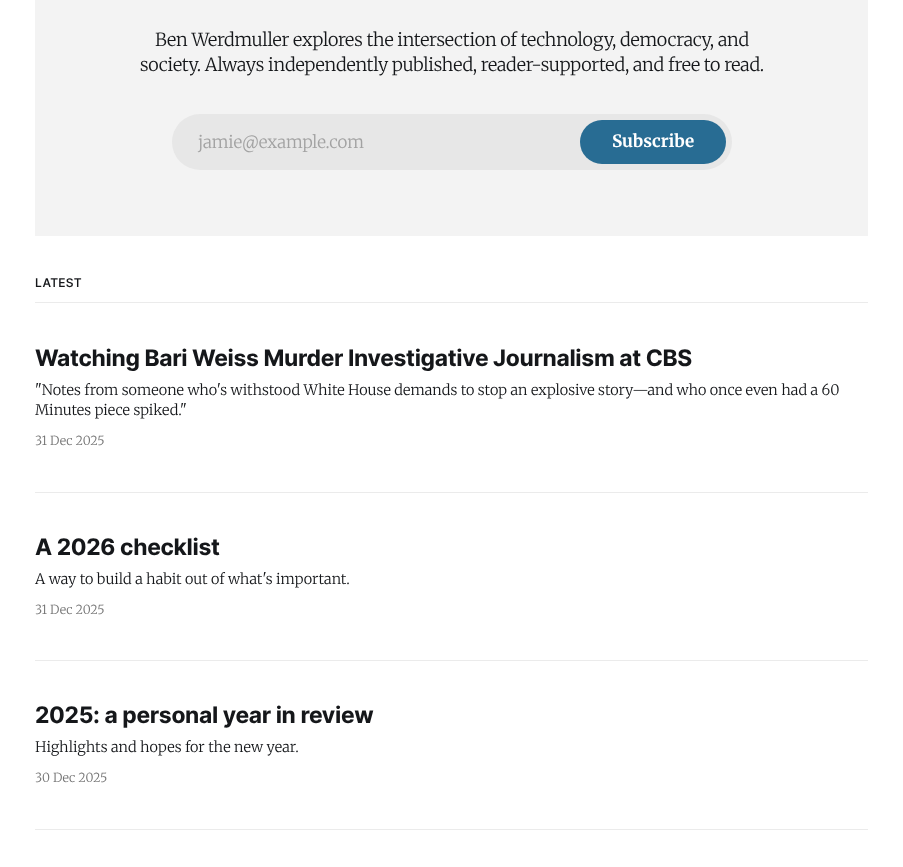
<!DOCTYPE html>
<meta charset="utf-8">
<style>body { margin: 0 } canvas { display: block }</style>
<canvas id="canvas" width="903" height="867"></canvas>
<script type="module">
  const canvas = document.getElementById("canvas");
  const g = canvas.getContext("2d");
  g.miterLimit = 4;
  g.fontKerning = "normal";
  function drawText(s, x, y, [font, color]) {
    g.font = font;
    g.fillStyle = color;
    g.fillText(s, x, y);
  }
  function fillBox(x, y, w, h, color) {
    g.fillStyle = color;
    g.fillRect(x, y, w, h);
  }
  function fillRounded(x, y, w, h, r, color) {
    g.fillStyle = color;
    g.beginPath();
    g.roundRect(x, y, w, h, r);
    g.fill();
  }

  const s1 = ["300 18px Merriweather", "#15171A"];
  const s2 = ["300 17px Merriweather", "#A2A2A2"];
  const s3 = ["300 17px 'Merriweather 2'", "#FFFFFF"];
  const s4 = ["500 12px Inter", "#15171A"];
  const s5 = ["bold 22.8px Inter", "#15171A"];
  const s6 = ["300 14.5px Merriweather", "#15171A"];
  const s7 = ["300 12.5px Merriweather", "#737373"];

  fillBox(0, 0, 903, 867, "#FFFFFF");
  fillBox(35, 0, 833, 236, "#F3F3F3");
  g.letterSpacing = "-0.27px";
  drawText("Ben Werdmuller explores the intersection of technology, democracy, and", 155, 46, s1);
  drawText("society. Always independently published, reader-supported, and free to read.", 140, 71, s1);
  fillRounded(172, 114, 560, 56, 28, "#E7E7E7");
  g.letterSpacing = "-0.1px";
  drawText("jamie@example.com", 198, 148, s2);
  fillRounded(580, 120, 146, 44, 22, "#286C93");
  g.letterSpacing = "0px";
  drawText("Subscribe", 612, 147, s3);
  fillBox(35, 302, 833, 1, "#EBEBEB");
  g.letterSpacing = "0.25px";
  drawText("LATEST", 35, 287, s4);
  g.letterSpacing = "-0.32px";
  drawText("Watching Bari Weiss Murder Investigative Journalism at CBS", 35, 366, s5);
  g.letterSpacing = "0px";
  drawText("\"Notes from someone who's withstood White House demands to stop an explosive story—and who once even had a 60", 35, 395, s6);
  drawText("Minutes piece spiked.\"", 35, 415, s6);
  drawText("31 Dec 2025", 35, 445, s7);
  fillBox(35, 492, 833, 1, "#EBEBEB");
  g.letterSpacing = "-0.32px";
  drawText("A 2026 checklist", 35, 555, s5);
  g.letterSpacing = "0px";
  drawText("A way to build a habit out of what's important.", 35, 584, s6);
  drawText("31 Dec 2025", 35, 614, s7);
  fillBox(35, 660, 833, 1, "#EBEBEB");
  g.letterSpacing = "-0.32px";
  drawText("2025: a personal year in review", 35, 723, s5);
  g.letterSpacing = "0px";
  drawText("Highlights and hopes for the new year.", 35, 752, s6);
  drawText("30 Dec 2025", 35, 782, s7);
  fillBox(35, 829, 833, 1, "#EBEBEB");
</script>
